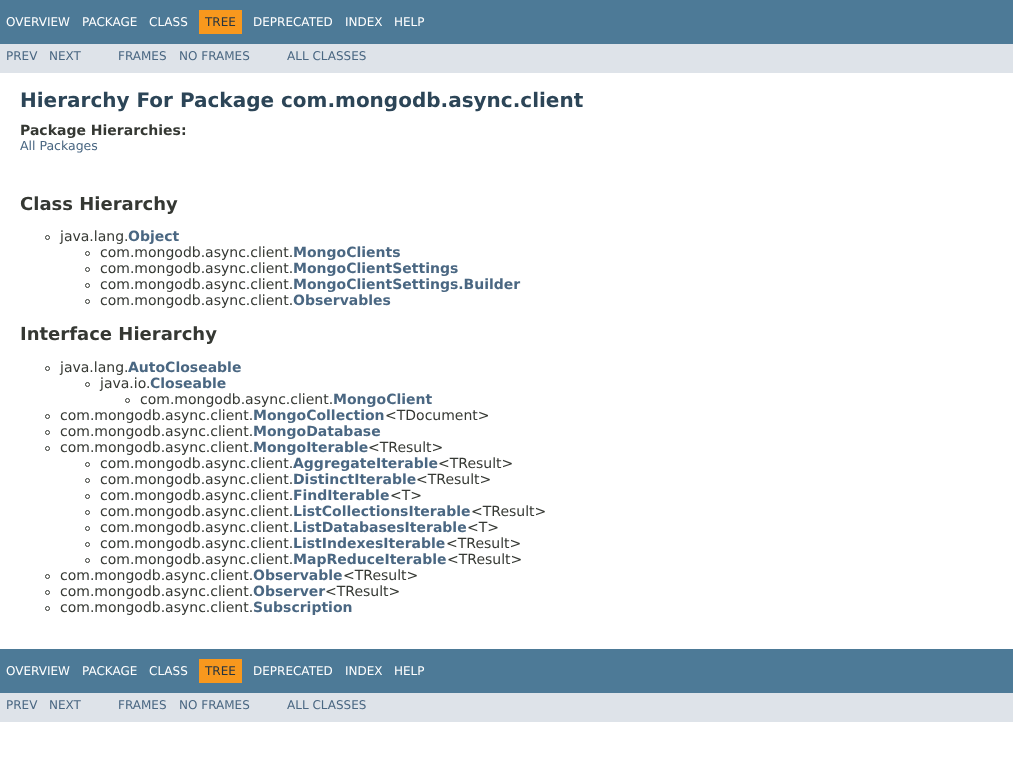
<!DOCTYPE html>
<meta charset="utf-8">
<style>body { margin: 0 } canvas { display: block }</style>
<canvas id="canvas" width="1013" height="766"></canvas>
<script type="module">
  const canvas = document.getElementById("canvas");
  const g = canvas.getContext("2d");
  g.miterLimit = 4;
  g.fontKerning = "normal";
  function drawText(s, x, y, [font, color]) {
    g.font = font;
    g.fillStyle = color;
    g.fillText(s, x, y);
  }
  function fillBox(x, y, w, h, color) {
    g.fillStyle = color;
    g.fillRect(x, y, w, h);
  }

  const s1 = ["12px DejaVu Sans", "#FFFFFF"];
  const s2 = ["12px DejaVu Sans", "#253441"];
  const s3 = ["12px DejaVu Sans", "#4A6782"];
  const s4 = ["bold 20px DejaVu Sans", "#2C4557"];
  const s5 = ["bold 14px DejaVu Sans", "#353833"];
  const s6 = ["12.5px DejaVu Sans", "#4A6782"];
  const s7 = ["bold 18px DejaVu Sans", "#353833"];
  const s8 = ["14px DejaVu Sans", "#353833"];
  const s9 = ["bold 14px DejaVu Sans", "#4A6782"];

  fillBox(0, 0, 1013, 766, "#FFFFFF");
  fillBox(0, 0, 1013, 44, "#4D7A97");
  drawText("OVERVIEW", 6, 26, s1);
  drawText("PACKAGE", 82, 26, s1);
  drawText("CLASS", 149, 26, s1);
  fillBox(199, 10, 43, 24, "#F8981D");
  drawText("TREE", 205, 26, s2);
  drawText("DEPRECATED", 253, 26, s1);
  drawText("INDEX", 345, 26, s1);
  drawText("HELP", 394, 26, s1);
  fillBox(0, 44, 1013, 29, "#DEE3E9");
  drawText("PREV", 6, 60, s3);
  drawText("NEXT", 49, 60, s3);
  drawText("FRAMES", 118, 60, s3);
  drawText("NO FRAMES", 179, 60, s3);
  drawText("ALL CLASSES", 287, 60, s3);
  drawText("Hierarchy For Package com.mongodb.async.client", 20, 107, s4);
  drawText("Package Hierarchies:", 20, 135, s5);
  drawText("All Packages", 20, 150, s6);
  drawText("Class Hierarchy", 20, 210, s7);
  g.beginPath();
  g.arc(47.5, 237.5, 2, 0, Math.PI * 2);
  g.strokeStyle = "#353833";
  g.stroke();
  drawText("java.lang.", 60, 241, s8);
  drawText("Object", 128, 241, s9);
  g.beginPath();
  g.arc(87.5, 253.5, 2, 0, Math.PI * 2);
  g.stroke();
  drawText("com.mongodb.async.client.", 100, 257, s8);
  drawText("MongoClients", 293, 257, s9);
  g.beginPath();
  g.arc(87.5, 269.5, 2, 0, Math.PI * 2);
  g.stroke();
  drawText("com.mongodb.async.client.", 100, 273, s8);
  drawText("MongoClientSettings", 293, 273, s9);
  g.beginPath();
  g.arc(87.5, 285.5, 2, 0, Math.PI * 2);
  g.stroke();
  drawText("com.mongodb.async.client.", 100, 289, s8);
  drawText("MongoClientSettings.Builder", 293, 289, s9);
  g.beginPath();
  g.arc(87.5, 301.5, 2, 0, Math.PI * 2);
  g.stroke();
  drawText("com.mongodb.async.client.", 100, 305, s8);
  drawText("Observables", 293, 305, s9);
  drawText("Interface Hierarchy", 20, 340, s7);
  g.beginPath();
  g.arc(47.5, 368.5, 2, 0, Math.PI * 2);
  g.stroke();
  drawText("java.lang.", 60, 372, s8);
  drawText("AutoCloseable", 128, 372, s9);
  g.beginPath();
  g.arc(87.5, 384.5, 2, 0, Math.PI * 2);
  g.stroke();
  drawText("java.io.", 100, 388, s8);
  drawText("Closeable", 150, 388, s9);
  g.beginPath();
  g.arc(127.5, 400.5, 2, 0, Math.PI * 2);
  g.stroke();
  drawText("com.mongodb.async.client.", 140, 404, s8);
  drawText("MongoClient", 333, 404, s9);
  g.beginPath();
  g.arc(47.5, 416.5, 2, 0, Math.PI * 2);
  g.stroke();
  drawText("com.mongodb.async.client.", 60, 420, s8);
  drawText("MongoCollection", 253, 420, s9);
  drawText("<TDocument>", 385, 420, s8);
  g.beginPath();
  g.arc(47.5, 432.5, 2, 0, Math.PI * 2);
  g.stroke();
  drawText("com.mongodb.async.client.", 60, 436, s8);
  drawText("MongoDatabase", 253, 436, s9);
  g.beginPath();
  g.arc(47.5, 448.5, 2, 0, Math.PI * 2);
  g.stroke();
  drawText("com.mongodb.async.client.", 60, 452, s8);
  drawText("MongoIterable", 253, 452, s9);
  drawText("<TResult>", 368, 452, s8);
  g.beginPath();
  g.arc(87.5, 464.5, 2, 0, Math.PI * 2);
  g.stroke();
  drawText("com.mongodb.async.client.", 100, 468, s8);
  drawText("AggregateIterable", 293, 468, s9);
  drawText("<TResult>", 438, 468, s8);
  g.beginPath();
  g.arc(87.5, 480.5, 2, 0, Math.PI * 2);
  g.stroke();
  drawText("com.mongodb.async.client.", 100, 484, s8);
  drawText("DistinctIterable", 293, 484, s9);
  drawText("<TResult>", 416, 484, s8);
  g.beginPath();
  g.arc(87.5, 496.5, 2, 0, Math.PI * 2);
  g.stroke();
  drawText("com.mongodb.async.client.", 100, 500, s8);
  drawText("FindIterable", 293, 500, s9);
  drawText("<T>", 390, 500, s8);
  g.beginPath();
  g.arc(87.5, 512.5, 2, 0, Math.PI * 2);
  g.stroke();
  drawText("com.mongodb.async.client.", 100, 516, s8);
  drawText("ListCollectionsIterable", 293, 516, s9);
  drawText("<TResult>", 471, 516, s8);
  g.beginPath();
  g.arc(87.5, 528.5, 2, 0, Math.PI * 2);
  g.stroke();
  drawText("com.mongodb.async.client.", 100, 532, s8);
  drawText("ListDatabasesIterable", 293, 532, s9);
  drawText("<T>", 467, 532, s8);
  g.beginPath();
  g.arc(87.5, 544.5, 2, 0, Math.PI * 2);
  g.stroke();
  drawText("com.mongodb.async.client.", 100, 548, s8);
  drawText("ListIndexesIterable", 293, 548, s9);
  drawText("<TResult>", 446, 548, s8);
  g.beginPath();
  g.arc(87.5, 560.5, 2, 0, Math.PI * 2);
  g.stroke();
  drawText("com.mongodb.async.client.", 100, 564, s8);
  drawText("MapReduceIterable", 293, 564, s9);
  drawText("<TResult>", 447, 564, s8);
  g.beginPath();
  g.arc(47.5, 576.5, 2, 0, Math.PI * 2);
  g.stroke();
  drawText("com.mongodb.async.client.", 60, 580, s8);
  drawText("Observable", 253, 580, s9);
  drawText("<TResult>", 343, 580, s8);
  g.beginPath();
  g.arc(47.5, 592.5, 2, 0, Math.PI * 2);
  g.stroke();
  drawText("com.mongodb.async.client.", 60, 596, s8);
  drawText("Observer", 253, 596, s9);
  drawText("<TResult>", 325, 596, s8);
  g.beginPath();
  g.arc(47.5, 608.5, 2, 0, Math.PI * 2);
  g.stroke();
  drawText("com.mongodb.async.client.", 60, 612, s8);
  drawText("Subscription", 253, 612, s9);
  fillBox(0, 649, 1013, 44, "#4D7A97");
  drawText("OVERVIEW", 6, 675, s1);
  drawText("PACKAGE", 82, 675, s1);
  drawText("CLASS", 149, 675, s1);
  fillBox(199, 659, 43, 24, "#F8981D");
  drawText("TREE", 205, 675, s2);
  drawText("DEPRECATED", 253, 675, s1);
  drawText("INDEX", 345, 675, s1);
  drawText("HELP", 394, 675, s1);
  fillBox(0, 693, 1013, 29, "#DEE3E9");
  drawText("PREV", 6, 709, s3);
  drawText("NEXT", 49, 709, s3);
  drawText("FRAMES", 118, 709, s3);
  drawText("NO FRAMES", 179, 709, s3);
  drawText("ALL CLASSES", 287, 709, s3);
</script>
